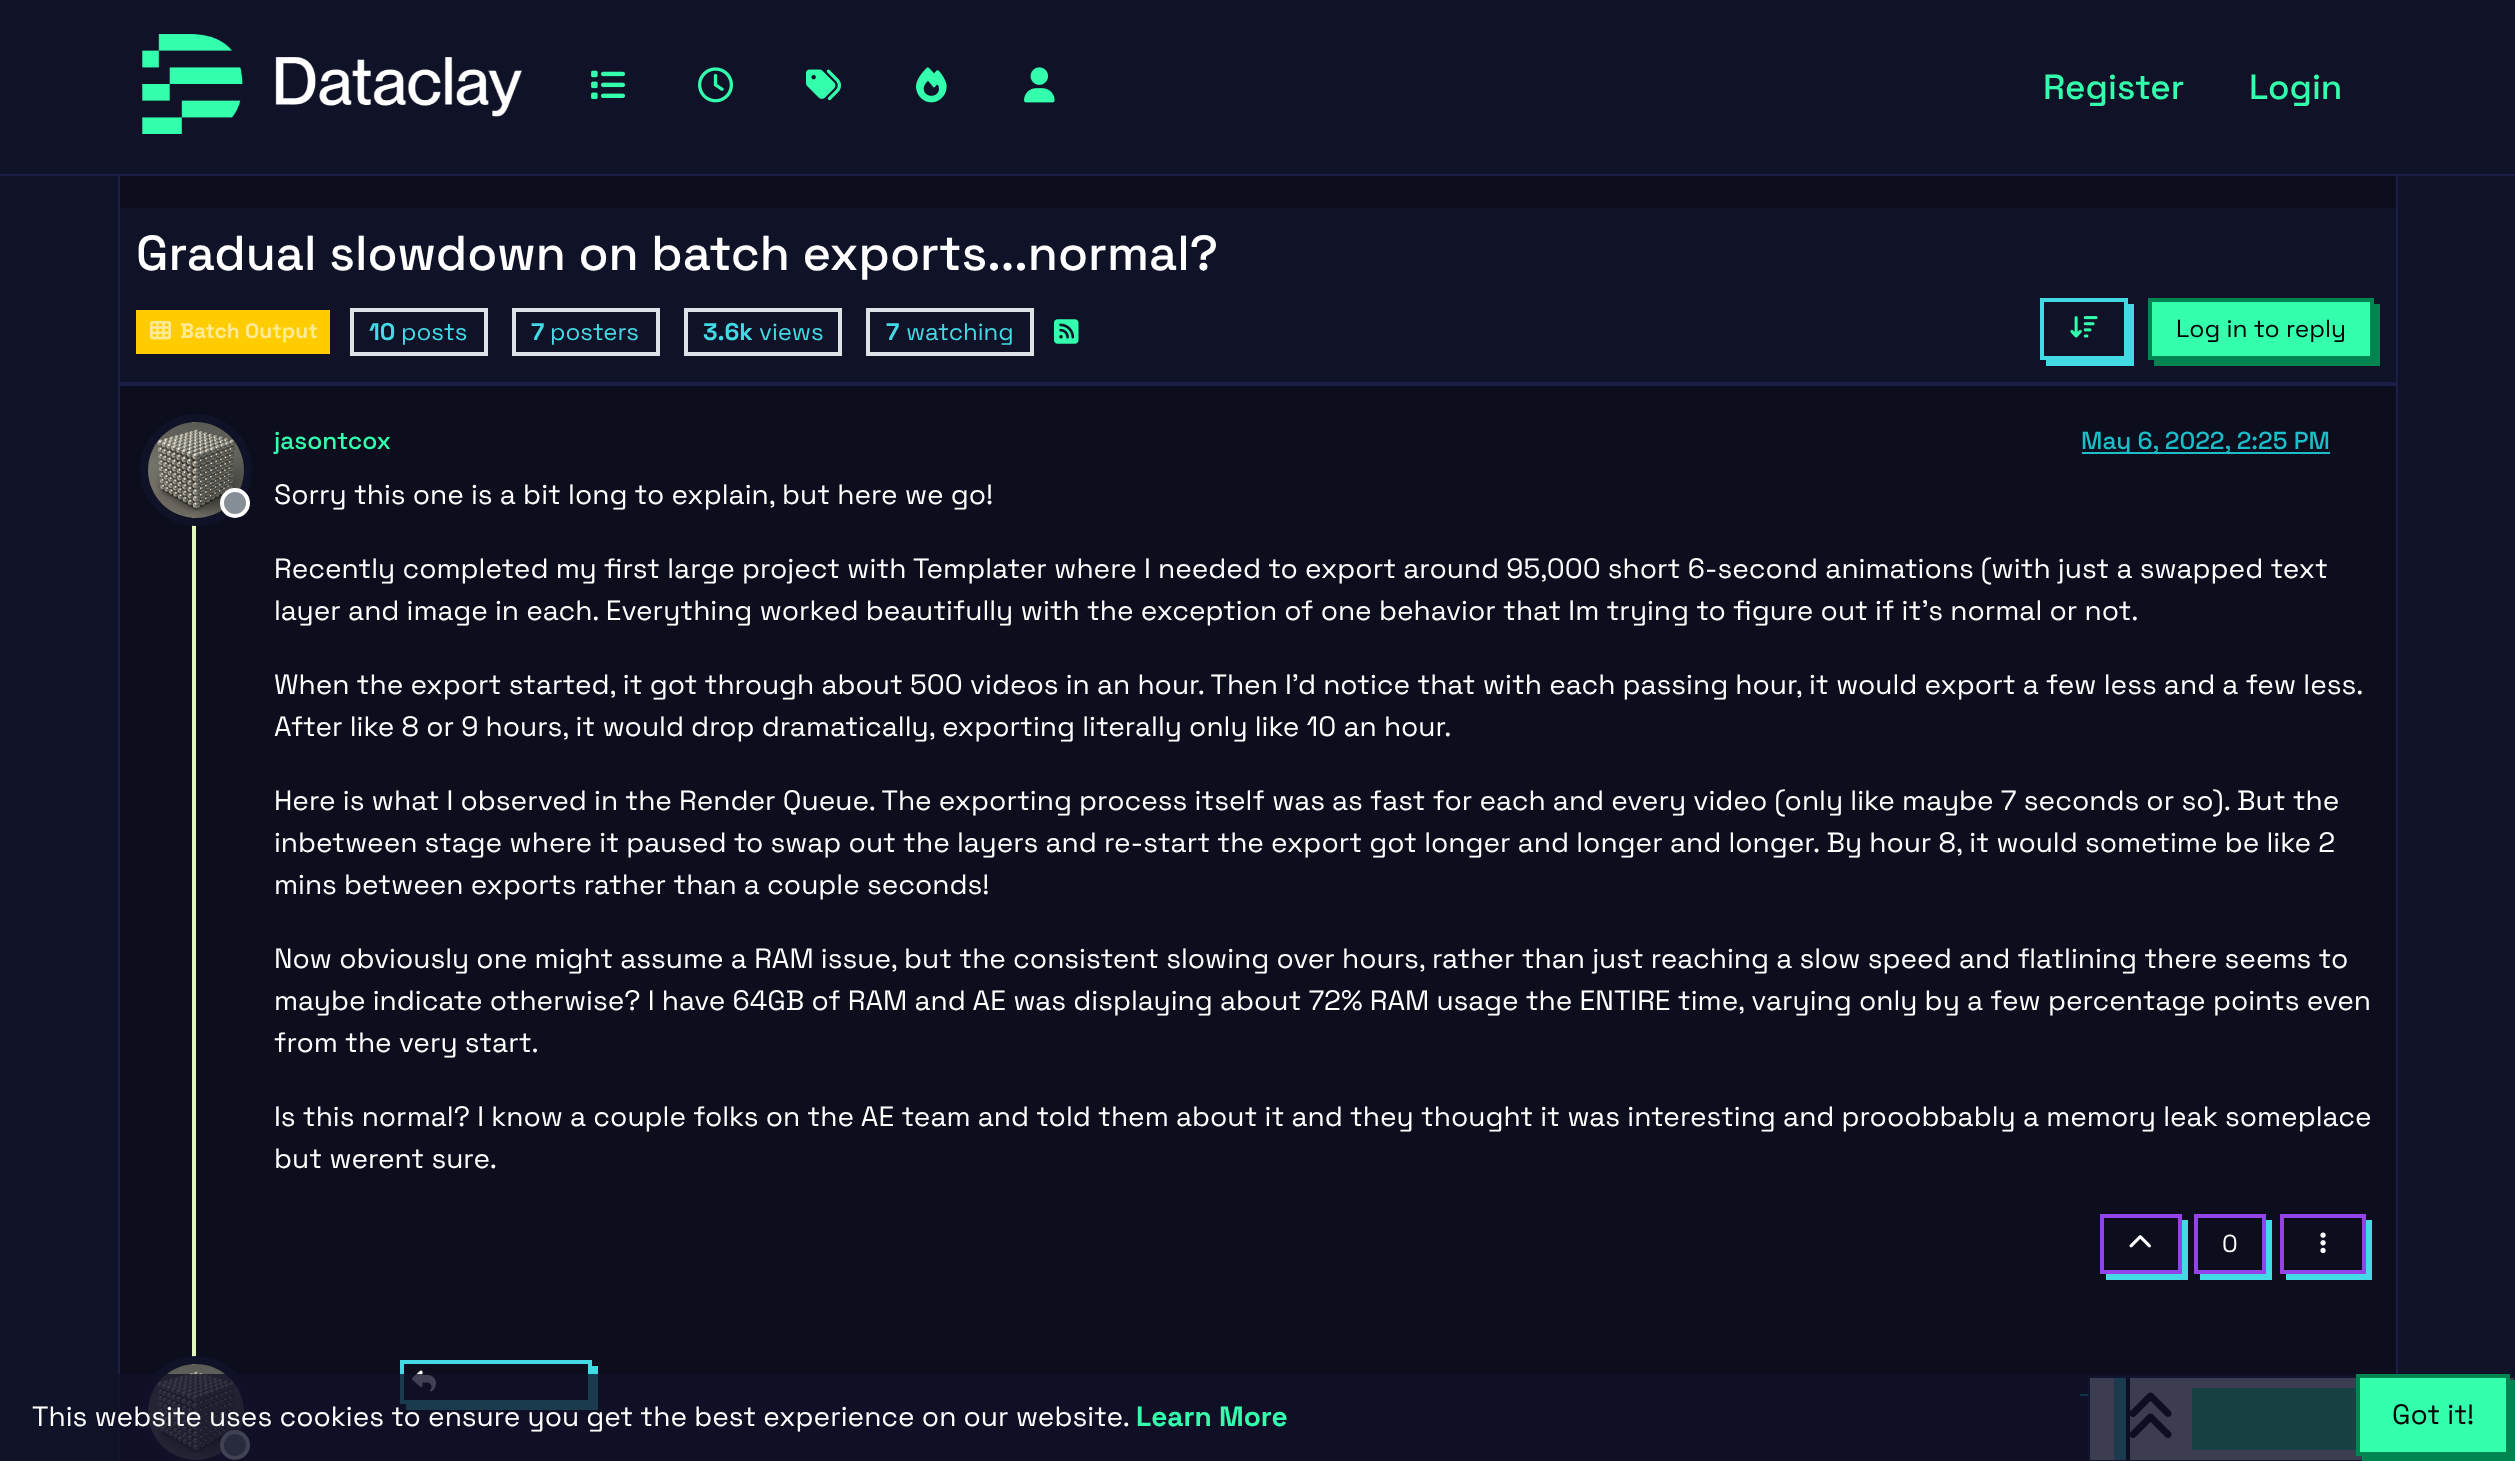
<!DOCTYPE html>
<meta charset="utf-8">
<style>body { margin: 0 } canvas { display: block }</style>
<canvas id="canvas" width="2515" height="1461"></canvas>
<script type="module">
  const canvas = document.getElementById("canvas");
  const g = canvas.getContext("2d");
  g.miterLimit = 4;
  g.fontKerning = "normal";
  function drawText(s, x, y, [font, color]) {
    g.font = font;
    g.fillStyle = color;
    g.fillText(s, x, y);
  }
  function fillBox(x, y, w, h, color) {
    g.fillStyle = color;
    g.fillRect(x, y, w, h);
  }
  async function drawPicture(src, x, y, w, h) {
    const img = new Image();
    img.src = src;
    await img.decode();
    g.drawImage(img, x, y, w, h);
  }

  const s1 = ["500 35px Space Grotesk", "#33FFAD"];
  const s2 = ["500 49px Space Grotesk", "#FFFFFF"];
  const s3 = ["bold 21px Space Grotesk", "#FFEA96"];
  const s4 = ["bold 24px Space Grotesk", "#43DAE5"];
  const s5 = ["24px Space Grotesk", "#43DAE5"];
  const s6 = ["24.5px Space Grotesk", "#000000"];
  const s7 = ["500 24.5px Space Grotesk", "#33FFAD"];
  const s8 = ["500 24.5px Space Grotesk", "#1CBECA"];
  const s9 = ["28px Space Grotesk", "#FFFFFF"];
  const s10 = ["24.5px Space Grotesk", "#FFFFFF"];
  const s11 = ["bold 28px Space Grotesk", "#33FFAD"];
  const s12 = ["28px Space Grotesk", "#000000"];

  fillBox(0, 0, 2515, 1461, "#101228");
  fillBox(0, 174, 2515, 2, "#1C1F45");
  await drawPicture("pic1.png", 142, 34, 380, 100);
  await drawPicture("pic2.png", 591, 70, 34, 30);
  await drawPicture("pic3.png", 698, 67, 35, 36);
  await drawPicture("pic4.png", 806, 69, 35, 32);
  await drawPicture("pic5.png", 916, 67, 31, 36);
  await drawPicture("pic6.png", 1024, 67, 31, 36);
  drawText("Register", 2043, 99, s1);
  drawText("Login", 2249, 99, s1);
  fillBox(120, 176, 2276, 1285, "#0C0D1D");
  fillBox(2396, 176, 2, 1198, "#1C1F45");
  fillBox(118, 176, 2, 1285, "#1C1F45");
  fillBox(120, 208, 2276, 174, "#101228");
  fillBox(120, 382, 2276, 4, "#1C1F45");
  drawText("Gradual slowdown on batch exports...normal?", 136, 270, s2);
  fillBox(136, 310, 194, 44, "#FFCC00");
  await drawPicture("pic7.png", 150, 320, 21, 20);
  drawText("Batch Output", 180, 338, s3);
  g.strokeStyle = "#DEE2E6";
  g.lineWidth = 4;
  g.strokeRect(352, 310, 134, 44);
  drawText("10", 369, 340, s4);
  drawText("posts", 401, 340, s5);
  g.strokeRect(514, 310, 144, 44);
  drawText("7", 531, 340, s4);
  drawText("posters", 550, 340, s5);
  g.strokeRect(686, 310, 154, 44);
  drawText("3.6k", 703, 340, s4);
  drawText("views", 759, 340, s5);
  g.strokeRect(868, 310, 164, 44);
  drawText("7", 886, 340, s4);
  drawText("watching", 906, 340, s5);
  await drawPicture("pic8.png", 1054, 319, 25, 25);
  g.beginPath();
  g.moveTo(2046, 360);
  g.lineTo(2046, 366);
  g.lineTo(2134, 366);
  g.lineTo(2134, 304);
  g.lineTo(2128, 304);
  g.lineTo(2128, 360);
  g.closePath();
  g.fill();
  g.strokeStyle = "#43DAE5";
  g.strokeRect(2042, 300, 84, 58);
  await drawPicture("pic9.png", 2070, 316, 28, 22);
  g.fillStyle = "#008550";
  g.beginPath();
  g.moveTo(2154, 360);
  g.lineTo(2154, 366);
  g.lineTo(2380, 366);
  g.lineTo(2380, 304);
  g.lineTo(2374, 304);
  g.lineTo(2374, 360);
  g.closePath();
  g.fill();
  g.fillStyle = "#33FFAD";
  g.beginPath();
  g.rect(2150, 300, 222, 58);
  g.fill();
  g.strokeStyle = "#008550";
  g.stroke();
  drawText("Log in to reply", 2176, 337, s6);
  fillBox(192, 418, 4, 1043, "#E0F6BD");
  g.beginPath();
  g.arc(196, 470, 52, 0, Math.PI * 2);
  g.strokeStyle = "#101228";
  g.lineWidth = 8;
  g.stroke();
  await drawPicture("pic10.png", 148, 422, 96, 96);
  g.fillStyle = "#868E96";
  g.beginPath();
  g.arc(235, 503, 13, 0, Math.PI * 2);
  g.fill();
  g.strokeStyle = "#FFFFFF";
  g.lineWidth = 4;
  g.stroke();
  drawText("jasontcox", 274, 449, s7);
  fillBox(2082, 452, 248, 2, "#1CBECA");
  drawText("May 6, 2022, 2:25 PM", 2081, 449, s8);
  drawText("Sorry this one is a bit long to explain, but here we go!", 274, 504, s9);
  drawText("Recently completed my first large project with Templater where I needed to export around 95,000 short 6-second animations (with just a swapped text", 274, 578, s9);
  drawText("layer and image in each. Everything worked beautifully with the exception of one behavior that Im trying to figure out if it’s normal or not.", 274, 620, s9);
  drawText("When the export started, it got through about 500 videos in an hour. Then I’d notice that with each passing hour, it would export a few less and a few less.", 274, 694, s9);
  drawText("After like 8 or 9 hours, it would drop dramatically, exporting literally only like 10 an hour.", 274, 736, s9);
  drawText("Here is what I observed in the Render Queue. The exporting process itself was as fast for each and every video (only like maybe 7 seconds or so). But the", 274, 810, s9);
  drawText("inbetween stage where it paused to swap out the layers and re-start the export got longer and longer and longer. By hour 8, it would sometime be like 2", 274, 852, s9);
  drawText("mins between exports rather than a couple seconds!", 274, 894, s9);
  drawText("Now obviously one might assume a RAM issue, but the consistent slowing over hours, rather than just reaching a slow speed and flatlining there seems to", 274, 968, s9);
  drawText("maybe indicate otherwise? I have 64GB of RAM and AE was displaying about 72% RAM usage the ENTIRE time, varying only by a few percentage points even", 274, 1010, s9);
  drawText("from the very start.", 274, 1052, s9);
  drawText("Is this normal? I know a couple folks on the AE team and told them about it and they thought it was interesting and prooobbably a memory leak someplace", 274, 1126, s9);
  drawText("but werent sure.", 274, 1168, s9);
  g.fillStyle = "#43DAE5";
  g.beginPath();
  g.moveTo(2106, 1274);
  g.lineTo(2106, 1280);
  g.lineTo(2188, 1280);
  g.lineTo(2188, 1220);
  g.lineTo(2182, 1220);
  g.lineTo(2182, 1274);
  g.closePath();
  g.fill();
  g.strokeStyle = "#9443EA";
  g.strokeRect(2102, 1216, 78, 56);
  await drawPicture("pic11.png", 2129, 1235, 22, 13);
  g.beginPath();
  g.moveTo(2200, 1274);
  g.lineTo(2200, 1280);
  g.lineTo(2272, 1280);
  g.lineTo(2272, 1220);
  g.lineTo(2266, 1220);
  g.lineTo(2266, 1274);
  g.closePath();
  g.fill();
  g.strokeRect(2196, 1216, 68, 56);
  drawText("0", 2222, 1252, s10);
  g.fillStyle = "#43DAE5";
  g.beginPath();
  g.moveTo(2286, 1274);
  g.lineTo(2286, 1280);
  g.lineTo(2372, 1280);
  g.lineTo(2372, 1220);
  g.lineTo(2366, 1220);
  g.lineTo(2366, 1274);
  g.closePath();
  g.fill();
  g.strokeRect(2282, 1216, 82, 56);
  await drawPicture("pic12.png", 2320, 1232, 6, 22);
  g.beginPath();
  g.arc(196, 1412, 52, 0, Math.PI * 2);
  g.strokeStyle = "#101228";
  g.lineWidth = 8;
  g.stroke();
  await drawPicture("pic13.png", 148, 1364, 96, 96);
  g.fillStyle = "#868E96";
  g.beginPath();
  g.arc(235, 1445, 13, 0, Math.PI * 2);
  g.fill();
  g.strokeStyle = "#FFFFFF";
  g.lineWidth = 4;
  g.stroke();
  g.fillStyle = "#43DAE5";
  g.beginPath();
  g.moveTo(406, 1404);
  g.lineTo(406, 1410);
  g.lineTo(598, 1410);
  g.lineTo(598, 1366);
  g.lineTo(592, 1366);
  g.lineTo(592, 1404);
  g.closePath();
  g.fill();
  g.strokeStyle = "#43DAE5";
  g.strokeRect(402, 1362, 188, 40);
  await drawPicture("pic14.png", 412, 1370, 24, 22);
  fillBox(2080, 1394, 8, 2, "#1CBECA");
  g.fillStyle = "#E9ECEF";
  g.beginPath();
  g.rect(2089, 1377, 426, 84);
  g.fill();
  g.strokeStyle = "#1C1F45";
  g.lineWidth = 2;
  g.stroke();
  fillBox(2114, 1378, 12, 82, "#43DAE5");
  fillBox(2126, 1378, 4, 82, "#000000");
  await drawPicture("pic15.png", 2130, 1392, 42, 46);
  fillBox(2192, 1388, 164, 62, "#33FFAD");
  fillBox(118, 1374, 2397, 87, "rgba(16, 18, 40, 0.8)");
  drawText("This website uses cookies to ensure you get the best experience on our website.", 32, 1426, s9);
  drawText("Learn More", 1136, 1426, s11);
  g.fillStyle = "#008550";
  g.beginPath();
  g.moveTo(2362, 1456);
  g.lineTo(2362, 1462);
  g.lineTo(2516, 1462);
  g.lineTo(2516, 1380);
  g.lineTo(2510, 1380);
  g.lineTo(2510, 1456);
  g.closePath();
  g.fill();
  g.fillStyle = "#33FFAD";
  g.beginPath();
  g.rect(2358, 1376, 150, 78);
  g.fill();
  g.strokeStyle = "#008550";
  g.lineWidth = 4;
  g.stroke();
  drawText("Got it!", 2392, 1424, s12);
</script>
